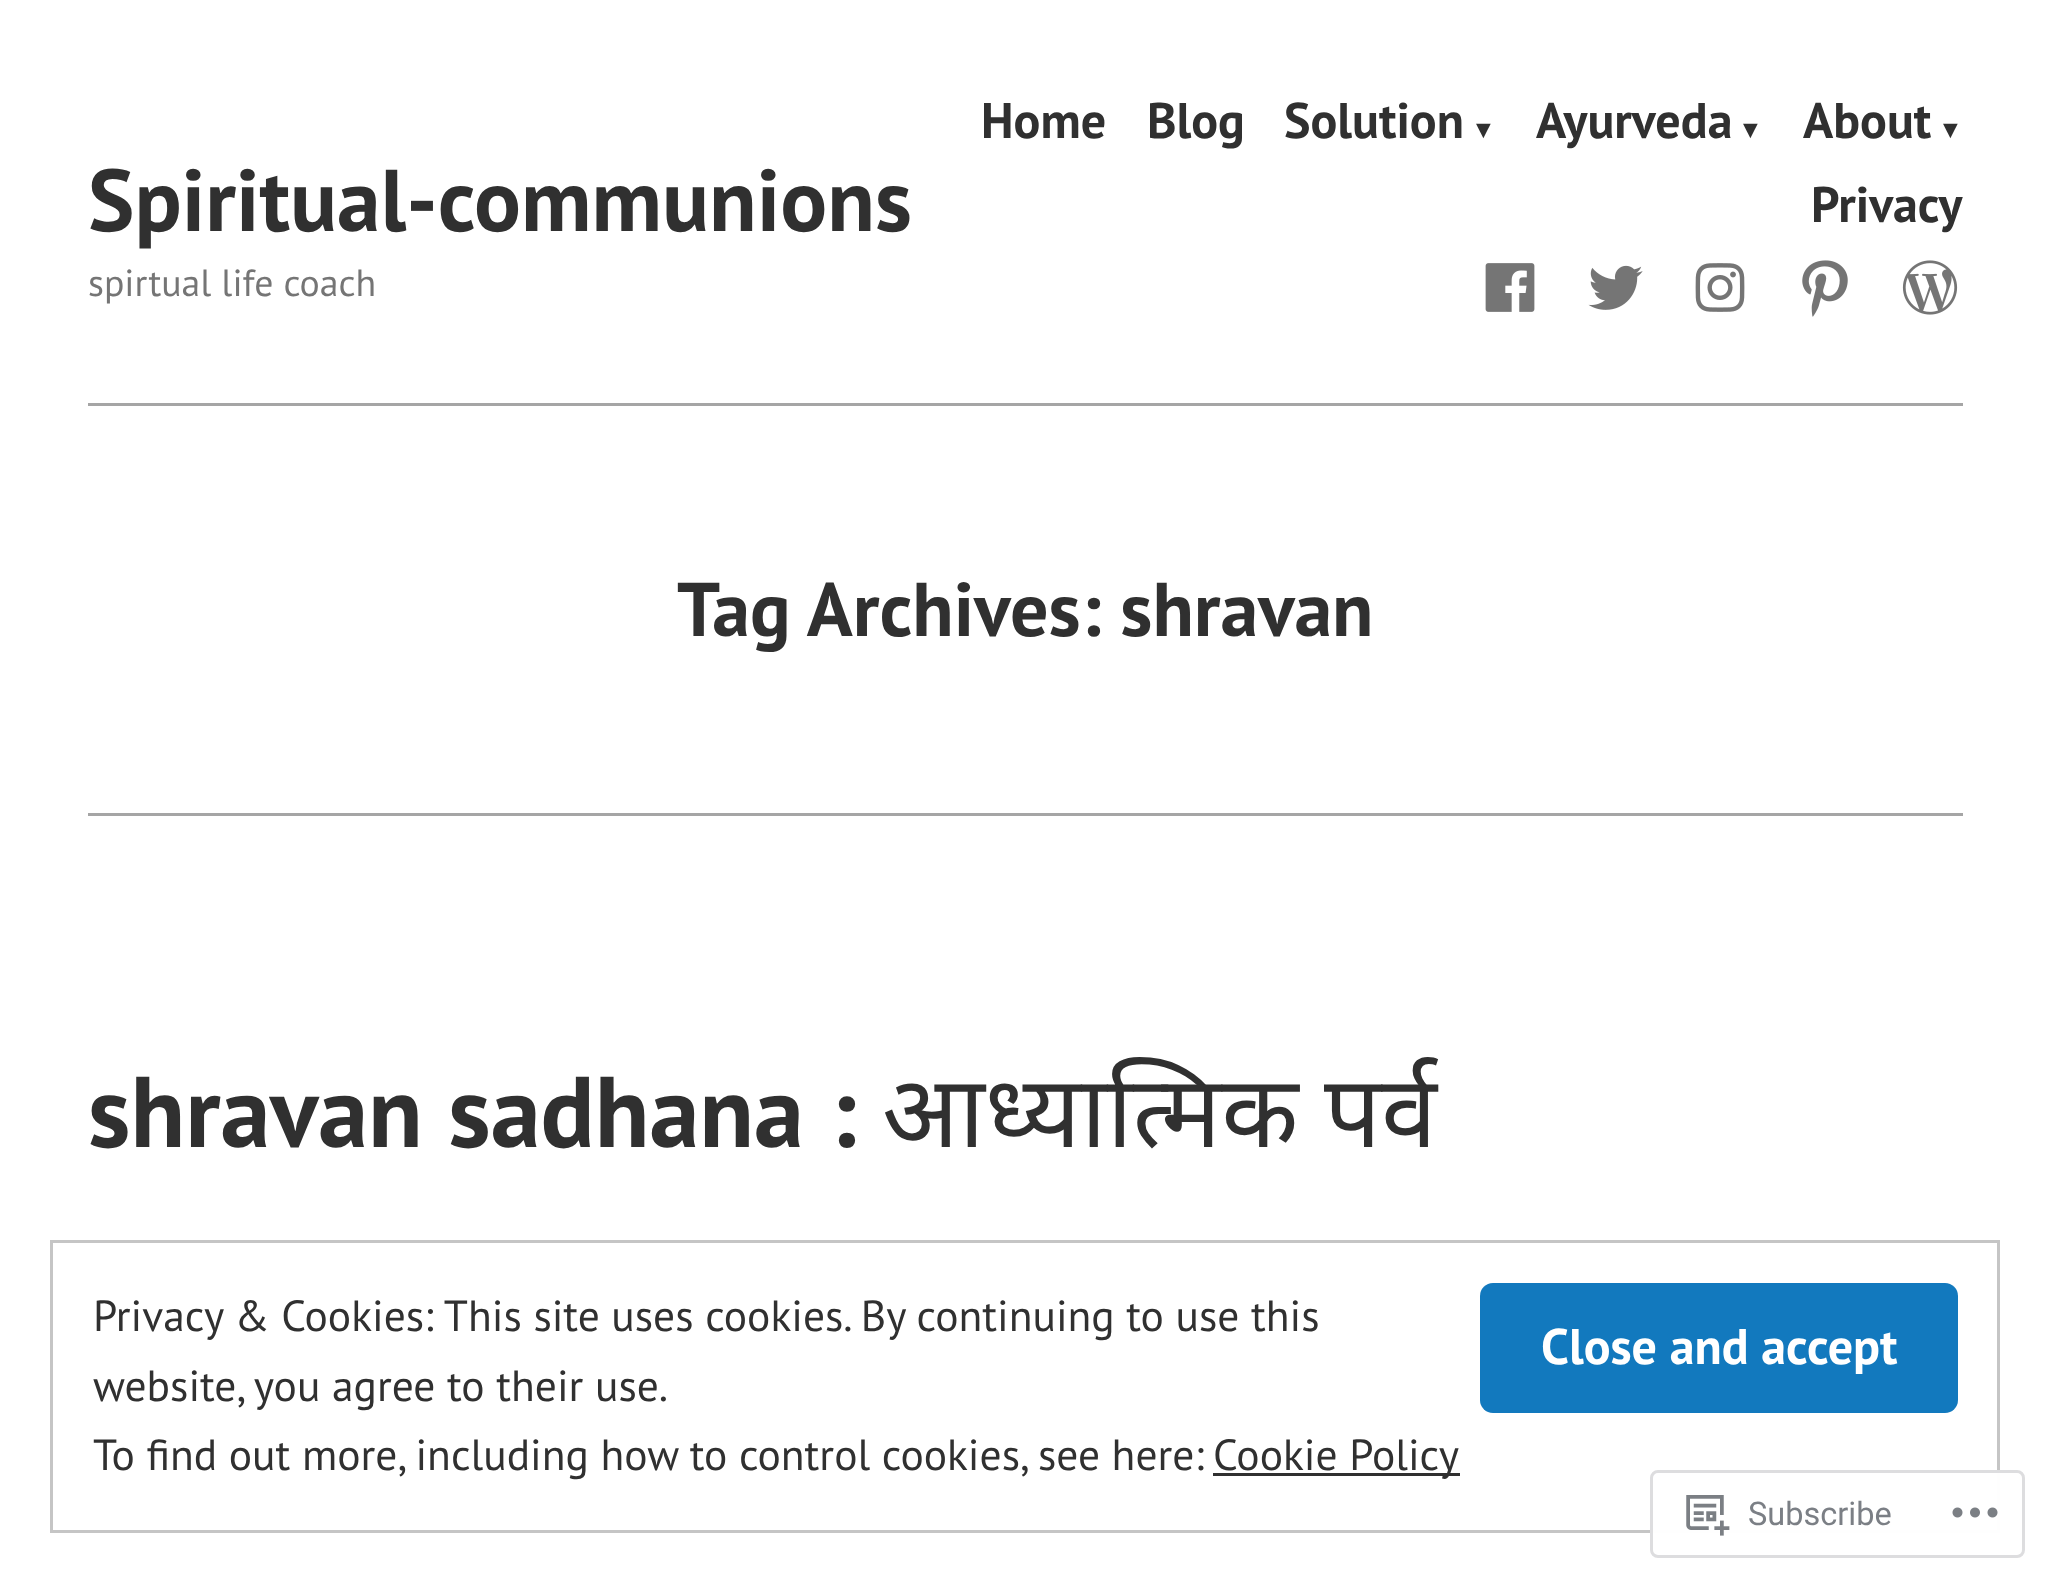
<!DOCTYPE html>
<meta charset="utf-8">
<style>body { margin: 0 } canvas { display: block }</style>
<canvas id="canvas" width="2048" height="1581"></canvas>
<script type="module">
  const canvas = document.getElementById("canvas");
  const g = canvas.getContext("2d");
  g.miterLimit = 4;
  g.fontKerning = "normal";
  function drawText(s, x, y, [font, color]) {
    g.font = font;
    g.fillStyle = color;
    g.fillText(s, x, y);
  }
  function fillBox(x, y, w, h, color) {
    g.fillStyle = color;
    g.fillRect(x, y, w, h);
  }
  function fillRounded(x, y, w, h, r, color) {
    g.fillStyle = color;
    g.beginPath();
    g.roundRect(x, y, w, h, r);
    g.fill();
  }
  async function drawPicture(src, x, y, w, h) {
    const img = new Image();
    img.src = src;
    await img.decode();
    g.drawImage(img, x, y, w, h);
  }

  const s1 = ["bold 87.5px PT Sans", "#303030"];
  const s2 = ["bold 50px PT Sans", "#303030"];
  const s3 = ["bold 25px Liberation Sans", "#303030"];
  const s4 = ["37.75px PT Sans", "#757575"];
  const s5 = ["bold 76px PT Sans", "#303030"];
  const s6 = ["bold 100.5px PT Sans", "#303030"];
  const s7 = ["100.5px Noto Sans", "#303030"];
  const s8 = ["43.5px PT Sans", "#303030"];
  const s9 = ["bold 50px PT Sans", "#FFFFFF"];
  const s10 = ["32.5px Roboto", "#7B7F85"];

  fillBox(0, 0, 2048, 1581, "#FFFFFF");
  drawText("Spiritual-communions", 88, 231, s1);
  drawText("Home", 981, 138, s2);
  drawText("Blog", 1147, 138, s2);
  drawText("Solution", 1284, 138, s2);
  drawText("▼", 1471, 138, s3);
  drawText("Ayurveda", 1536, 138, s2);
  drawText("▼", 1738, 138, s3);
  drawText("About", 1803, 138, s2);
  drawText("▼", 1938, 138, s3);
  drawText("Privacy", 1811, 222, s2);
  drawText("spirtual life coach", 88, 296, s4);
  await drawPicture("pic1.png", 1485, 263, 50, 49);
  await drawPicture("pic2.png", 1588, 265, 55, 45);
  await drawPicture("pic3.png", 1695, 263, 50, 49);
  await drawPicture("pic4.png", 1802, 260, 46, 57);
  await drawPicture("pic5.png", 1902, 260, 56, 55);
  fillBox(88, 403, 1875, 3, "#A5A5A5");
  drawText("Tag Archives: shravan", 677, 636, s5);
  fillBox(88, 813, 1875, 3, "#A5A5A5");
  drawText("shravan sadhana :", 88, 1147, s6);
  drawText("आध्यात्मिक", 882, 1147, s7);
  drawText("पर्व", 1324, 1147, s7);
  g.strokeStyle = "#C5C5C5";
  g.lineWidth = 3;
  g.strokeRect(51.5, 1241.5, 1947, 290);
  drawText("Privacy & Cookies: This site uses cookies. By continuing to use this", 93, 1331, s8);
  fillRounded(1480, 1283, 478, 130, 13, "#1279BE");
  drawText("Close and accept", 1541, 1364, s9);
  drawText("website, you agree to their use.", 93, 1401, s8);
  drawText("To find out more, including how to control cookies, see here:", 93, 1470, s8);
  fillBox(1213, 1473, 247, 3, "#303030");
  drawText("Cookie Policy", 1213, 1470, s8);
  g.fillStyle = "rgba(255, 255, 255, 0.98)";
  g.beginPath();
  g.roundRect(1651.5, 1471.5, 372, 85, 6.5);
  g.fill();
  g.strokeStyle = "#DDDDDF";
  g.stroke();
  await drawPicture("pic6.png", 1686, 1495, 44, 41);
  drawText("Subscribe", 1748, 1525, s10);
  await drawPicture("pic7.png", 1952, 1507, 46, 11);
</script>
